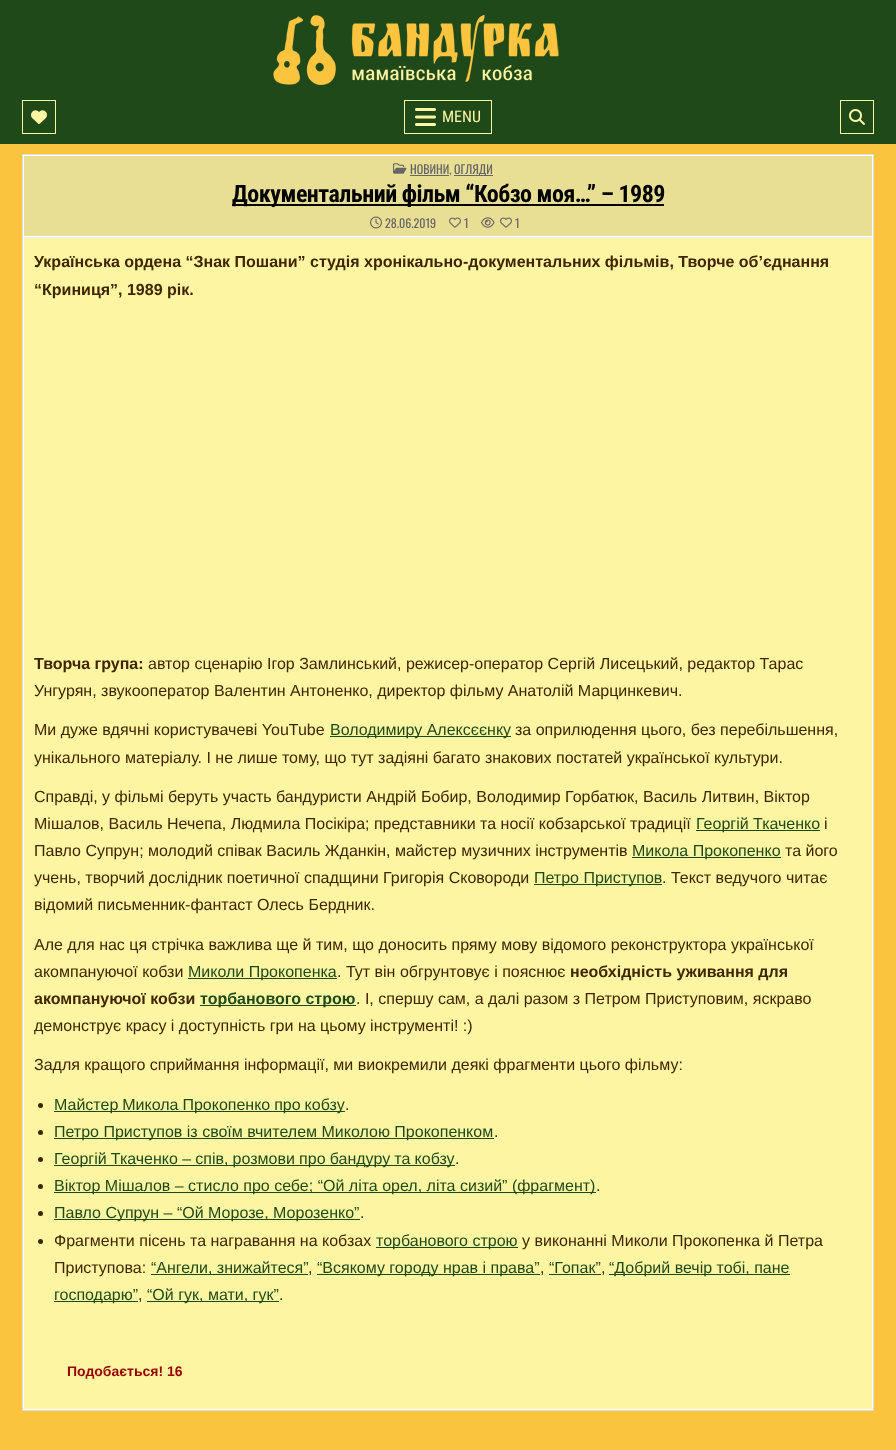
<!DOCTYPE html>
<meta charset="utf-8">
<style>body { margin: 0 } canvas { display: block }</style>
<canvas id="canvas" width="896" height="1450"></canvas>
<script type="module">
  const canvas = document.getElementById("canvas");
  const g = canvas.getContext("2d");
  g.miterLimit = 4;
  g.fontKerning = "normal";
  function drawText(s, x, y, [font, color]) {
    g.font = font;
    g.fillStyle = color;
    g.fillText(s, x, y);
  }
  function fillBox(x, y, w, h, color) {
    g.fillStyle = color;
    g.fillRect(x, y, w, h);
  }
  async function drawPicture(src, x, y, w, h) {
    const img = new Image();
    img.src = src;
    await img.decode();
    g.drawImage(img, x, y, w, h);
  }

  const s1 = ["16px Roboto Condensed", "#FDF5A2"];
  const s2 = ["12px Oswald", "#666666"];
  const s3 = ["bold 24px Roboto Condensed", "#000000"];
  const s4 = ["bold 16px Liberation Sans", "#402502"];
  const s5 = ["16px Liberation Sans", "#402502"];
  const s6 = ["16px Liberation Sans", "#20491A"];
  const s7 = ["bold 16px Liberation Sans", "#20491A"];
  const s8 = ["bold 14px Liberation Sans", "#980404"];

  fillBox(0, 0, 896, 1450, "#FBC43E");
  fillBox(0, 0, 896, 144, "#20491A");
  await drawPicture("pic1.png", 273, 15, 286, 70);
  g.strokeStyle = "#FDF5A2";
  g.strokeRect(22.5, 100.5, 33, 33);
  await drawPicture("pic2.png", 31, 110, 16, 14);
  g.strokeRect(404.5, 100.5, 87, 33);
  await drawPicture("pic3.png", 415, 108, 21, 18);
  drawText("MENU", 442, 122, s1);
  g.strokeRect(840.5, 100.5, 33, 33);
  await drawPicture("pic4.png", 849, 109, 16, 16);
  fillBox(24, 238, 848, 1171, "#FDF5A2");
  g.strokeStyle = "#DDDDDD";
  g.strokeRect(22.5, 154.5, 851, 1256);
  g.strokeStyle = "#FFFFFF";
  g.strokeRect(23.5, 155.5, 849, 1254);
  fillBox(24, 156, 848, 80, "#E8DF94");
  fillBox(24, 237, 848, 1, "#EEEEEE");
  fillBox(24, 236, 848, 1, "#FFFFFF");
  await drawPicture("pic5.png", 393, 163, 14, 11);
  fillBox(410, 175, 39, 1, "#666666");
  drawText("НОВИНИ,", 410, 174, s2);
  fillBox(454, 175, 39, 1, "#666666");
  drawText("ОГЛЯДИ", 454, 174, s2);
  fillBox(232, 204, 432, 2, "#000000");
  g.letterSpacing = "-0.5px";
  drawText("Документальний фільм “Кобзо моя…” – 1989", 232, 202, s3);
  await drawPicture("pic6.png", 370, 216, 12, 13);
  g.letterSpacing = "0px";
  drawText("28.06.2019", 385, 228, s2);
  await drawPicture("pic7.png", 449, 217, 12, 11);
  drawText("1", 464, 228, s2);
  await drawPicture("pic8.png", 481, 217, 14, 11);
  await drawPicture("pic7.png", 500, 217, 12, 11);
  drawText("1", 515, 228, s2);
  drawText("Українська ордена “Знак Пошани” студія хронікально-документальних фільмів, Творче об’єднання", 34, 267, s4);
  drawText("“Криниця”, 1989 рік.", 34, 295, s4);
  drawText("Творча група:", 34, 669, s4);
  drawText("автор сценарію Ігор Замлинський, режисер-оператор Сергій Лисецький, редактор Тарас", 148, 669, s5);
  drawText("Унгурян, звукооператор Валентин Антоненко, директор фільму Анатолій Марцинкевич.", 34, 696, s5);
  drawText("Ми дуже вдячні користувачеві YouTube", 34, 735, s5);
  fillBox(330, 736, 181, 1, "#20491A");
  drawText("Володимиру Алексєєнку", 330, 735, s6);
  drawText("за оприлюдення цього, без перебільшення,", 515, 735, s5);
  drawText("унікального матеріалу. І не лише тому, що тут задіяні багато знакових постатей української культури.", 34, 763, s5);
  drawText("Справді, у фільмі беруть участь бандуристи Андрій Бобир, Володимир Горбатюк, Василь Литвин, Віктор", 34, 802, s5);
  drawText("Мішалов, Василь Нечепа, Людмила Посікіра; представники та носії кобзарської традиції", 34, 829, s5);
  fillBox(696, 830, 124, 1, "#20491A");
  drawText("Георгій Ткаченко", 696, 829, s6);
  drawText("і", 824, 829, s5);
  drawText("Павло Супрун; молодий співак Василь Жданкін, майстер музичних інструментів", 34, 856, s5);
  fillBox(632, 857, 149, 1, "#20491A");
  drawText("Микола Прокопенко", 632, 856, s6);
  drawText("та його", 785, 856, s5);
  drawText("учень, творчий дослідник поетичної спадщини Григорія Сковороди", 34, 883, s5);
  fillBox(534, 884, 128, 1, "#20491A");
  drawText("Петро Приступов", 534, 883, s6);
  drawText(". Текст ведучого читає", 662, 883, s5);
  drawText("відомий письменник-фантаст Олесь Бердник.", 34, 910, s5);
  drawText("Але для нас ця стрічка важлива ще й тим, що доносить пряму мову відомого реконструктора української", 34, 950, s5);
  drawText("акомпануючої кобзи", 34, 977, s5);
  fillBox(188, 978, 149, 1, "#20491A");
  drawText("Миколи Прокопенка", 188, 977, s6);
  drawText(". Тут він обгрунтовує і пояснює", 337, 977, s5);
  drawText("необхідність уживання для", 570, 977, s4);
  drawText("акомпануючої кобзи", 34, 1004, s4);
  fillBox(200, 1005, 156, 1, "#20491A");
  drawText("торбанового строю", 200, 1004, s7);
  drawText(". І, спершу сам, а далі разом з Петром Приступовим, яскраво", 356, 1004, s5);
  drawText("демонструє красу і доступність гри на цьому інструменті! :)", 34, 1031, s5);
  drawText("Задля кращого сприймання інформації, ми виокремили деякі фрагменти цього фільму:", 34, 1070, s5);
  g.beginPath();
  g.arc(40.5, 1105.5, 2.5, 0, Math.PI * 2);
  g.fill();
  fillBox(54, 1111, 291, 1, "#20491A");
  g.wordSpacing = "-0.5px";
  drawText("Майстер Микола Прокопенко про кобзу", 54, 1110, s6);
  g.wordSpacing = "0px";
  drawText(".", 345, 1110, s5);
  g.beginPath();
  g.arc(40.5, 1132.5, 2.5, 0, Math.PI * 2);
  g.fill();
  fillBox(54, 1138, 440, 1, "#20491A");
  drawText("Петро Приступов із своїм вчителем Миколою Прокопенком", 54, 1137, s6);
  drawText(".", 494, 1137, s5);
  g.beginPath();
  g.arc(40.5, 1159.5, 2.5, 0, Math.PI * 2);
  g.fill();
  fillBox(54, 1165, 401, 1, "#20491A");
  g.wordSpacing = "-0.25px";
  drawText("Георгій Ткаченко – спів, розмови про бандуру та кобзу", 54, 1164, s6);
  g.wordSpacing = "0px";
  drawText(".", 455, 1164, s5);
  g.beginPath();
  g.arc(40.5, 1186.5, 2.5, 0, Math.PI * 2);
  g.fill();
  fillBox(54, 1192, 542, 1, "#20491A");
  drawText("Віктор Мішалов – стисло про себе; “Ой літа орел, літа сизий” (фрагмент)", 54, 1191, s6);
  drawText(".", 596, 1191, s5);
  g.beginPath();
  g.arc(40.5, 1213.5, 2.5, 0, Math.PI * 2);
  g.fill();
  fillBox(54, 1219, 306, 1, "#20491A");
  drawText("Павло Супрун – “Ой Морозе, Морозенко”", 54, 1218, s6);
  drawText(".", 360, 1218, s5);
  g.beginPath();
  g.arc(40.5, 1241.5, 2.5, 0, Math.PI * 2);
  g.fill();
  drawText("Фрагменти пісень та награвання на кобзах", 54, 1246, s5);
  fillBox(376, 1247, 142, 1, "#20491A");
  drawText("торбанового строю", 376, 1246, s6);
  drawText("у виконанні Миколи Прокопенка й Петра", 522, 1246, s5);
  drawText("Приступова:", 54, 1273, s5);
  fillBox(151, 1274, 157, 1, "#20491A");
  drawText("“Ангели, знижайтеся”", 151, 1273, s6);
  drawText(",", 308, 1273, s5);
  fillBox(317, 1274, 223, 1, "#20491A");
  drawText("“Всякому городу нрав і права”", 317, 1273, s6);
  drawText(",", 540, 1273, s5);
  drawText("“Гопак”", 549, 1273, s6);
  fillBox(549, 1274, 52, 1, "#20491A");
  drawText(",", 601, 1273, s5);
  fillBox(609, 1274, 181, 1, "#20491A");
  drawText("“Добрий вечір тобі, пане", 609, 1273, s6);
  fillBox(54, 1301, 84, 1, "#20491A");
  drawText("господарю”", 54, 1300, s6);
  drawText(",", 138, 1300, s5);
  fillBox(147, 1301, 132, 1, "#20491A");
  drawText("“Ой гук, мати, гук”", 147, 1300, s6);
  drawText(".", 279, 1300, s5);
  drawText("Подобається! 16", 67, 1376, s8);
</script>
